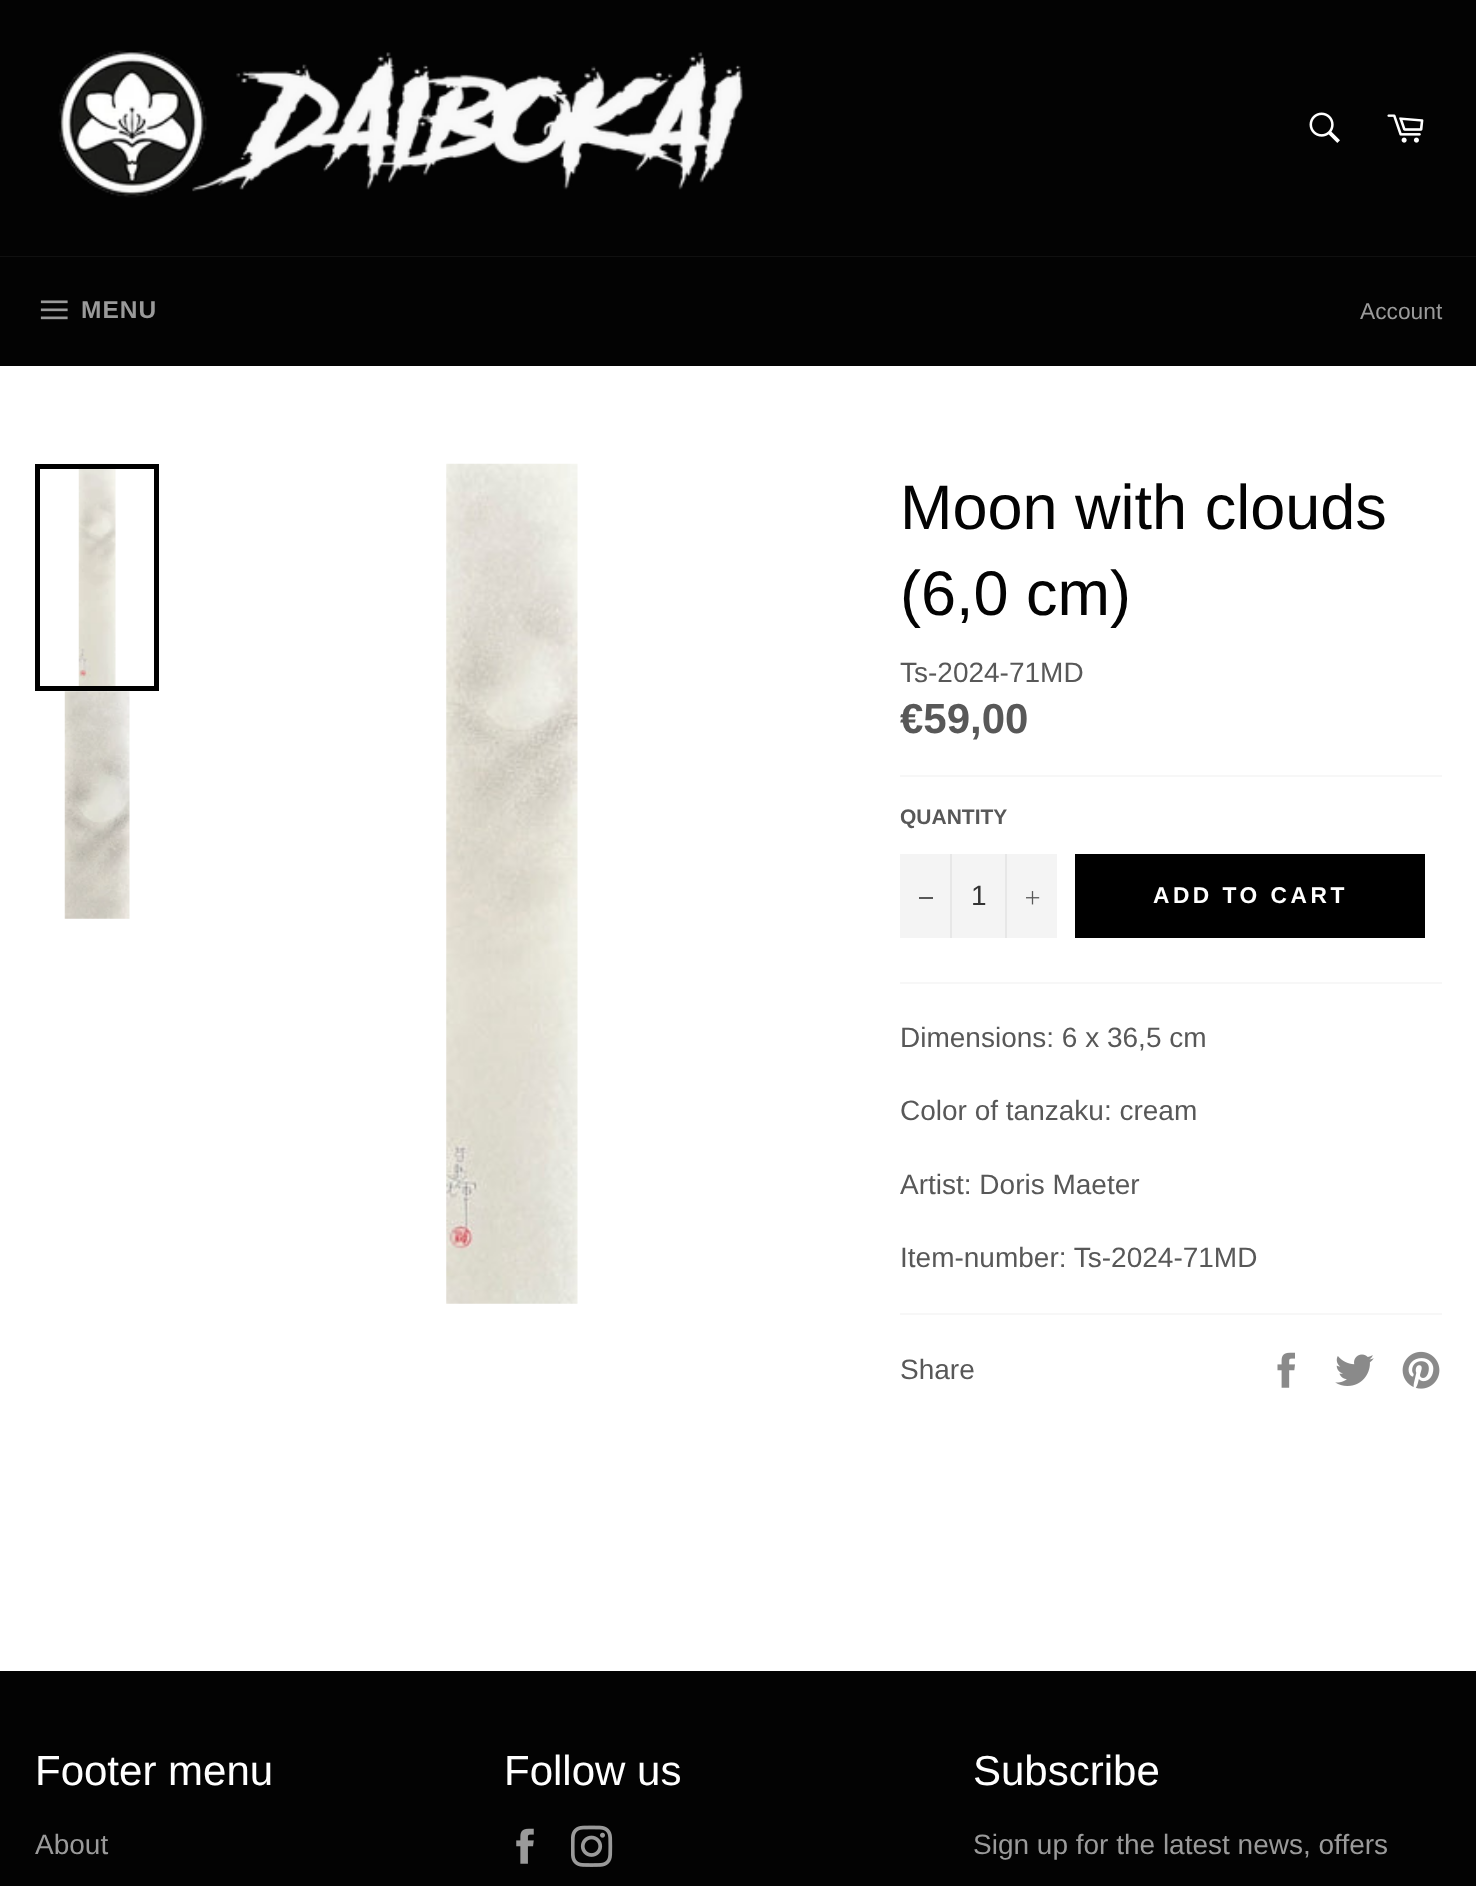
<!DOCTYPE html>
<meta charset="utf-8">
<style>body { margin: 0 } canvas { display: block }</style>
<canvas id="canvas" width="1476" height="1886"></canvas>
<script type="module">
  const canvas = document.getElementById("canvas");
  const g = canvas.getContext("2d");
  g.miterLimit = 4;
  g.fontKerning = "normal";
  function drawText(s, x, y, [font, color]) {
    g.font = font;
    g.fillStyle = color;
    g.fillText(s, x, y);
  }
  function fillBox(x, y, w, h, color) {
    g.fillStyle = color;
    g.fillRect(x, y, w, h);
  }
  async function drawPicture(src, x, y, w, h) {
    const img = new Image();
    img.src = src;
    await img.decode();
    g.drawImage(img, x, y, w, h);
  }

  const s1 = ["bold 24.5px Liberation Sans", "#9A9A9A"];
  const s2 = ["22.75px Liberation Sans", "#9A9A9A"];
  const s3 = ["63px Liberation Sans", "#030303"];
  const s4 = ["28px Liberation Sans", "#585858"];
  const s5 = ["bold 42px Liberation Sans", "#585858"];
  const s6 = ["bold 21px Liberation Sans", "#585858"];
  const s7 = ["28px Liberation Sans", "#333333"];
  const s8 = ["bold 22.75px Liberation Sans", "#FFFFFF"];
  const s9 = ["42px Liberation Sans", "#FFFFFF"];
  const s10 = ["28px Liberation Sans", "#9A9A9A"];

  fillBox(0, 0, 1476, 1886, "#030303");
  await drawPicture("pic1.png", 58, 50, 686, 148);
  await drawPicture("pic2.png", 1309, 112, 31, 31);
  await drawPicture("pic3.png", 1387, 114, 37, 29);
  fillBox(0, 256, 1476, 1, "#101010");
  await drawPicture("pic4.png", 40, 300, 28, 20);
  g.letterSpacing = "1px";
  drawText("MENU", 81, 318, s1);
  g.letterSpacing = "0px";
  drawText("Account", 1360, 319, s2);
  fillBox(0, 366, 1476, 1305, "#FFFFFF");
  await drawPicture("pic5.png", 78, 463, 38, 229);
  g.strokeStyle = "#000000";
  g.lineWidth = 5;
  g.strokeRect(37.5, 466.5, 119, 222);
  await drawPicture("pic6.png", 64, 691, 66, 228);
  await drawPicture("pic7.png", 446, 463, 132, 841);
  drawText("Moon with clouds", 900, 529, s3);
  drawText("(6,0 cm)", 900, 615, s3);
  drawText("Ts-2024-71MD", 900, 682, s4);
  drawText("€59,00", 900, 733, s5);
  fillBox(900, 775, 542, 2, "#F7F7F7");
  drawText("QUANTITY", 900, 824, s6);
  fillBox(900, 854, 157, 84, "#F4F4F4");
  fillBox(950, 854, 2, 84, "#E7E7E7");
  fillBox(919, 897, 14, 2, "#585858");
  drawText("1", 971, 905, s7);
  fillBox(1005, 854, 2, 84, "#E7E7E7");
  await drawPicture("pic8.png", 1026, 891, 14, 14);
  fillBox(1075, 854, 350, 84, "#000000");
  g.letterSpacing = "3.5px";
  drawText("ADD TO CART", 1153, 903, s8);
  fillBox(900, 982, 542, 2, "#F7F7F7");
  g.letterSpacing = "0px";
  drawText("Dimensions: 6 x 36,5 cm", 900, 1047, s4);
  drawText("Color of tanzaku: cream", 900, 1120, s4);
  drawText("Artist: Doris Maeter", 900, 1194, s4);
  drawText("Item-number: Ts-2024-71MD", 900, 1267, s4);
  fillBox(900, 1313, 542, 2, "#F7F7F7");
  drawText("Share", 900, 1379, s4);
  await drawPicture("pic9.png", 1277, 1352, 18, 36);
  await drawPicture("pic10.png", 1335, 1354, 39, 32);
  await drawPicture("pic11.png", 1402, 1351, 38, 38);
  drawText("Footer menu", 35, 1785, s9);
  drawText("About", 35, 1854, s10);
  drawText("Follow us", 504, 1785, s9);
  await drawPicture("pic12.png", 516, 1828, 18, 36);
  await drawPicture("pic13.png", 571, 1825, 42, 42);
  drawText("Subscribe", 973, 1785, s9);
  drawText("Sign up for the latest news, offers", 973, 1854, s10);
</script>
